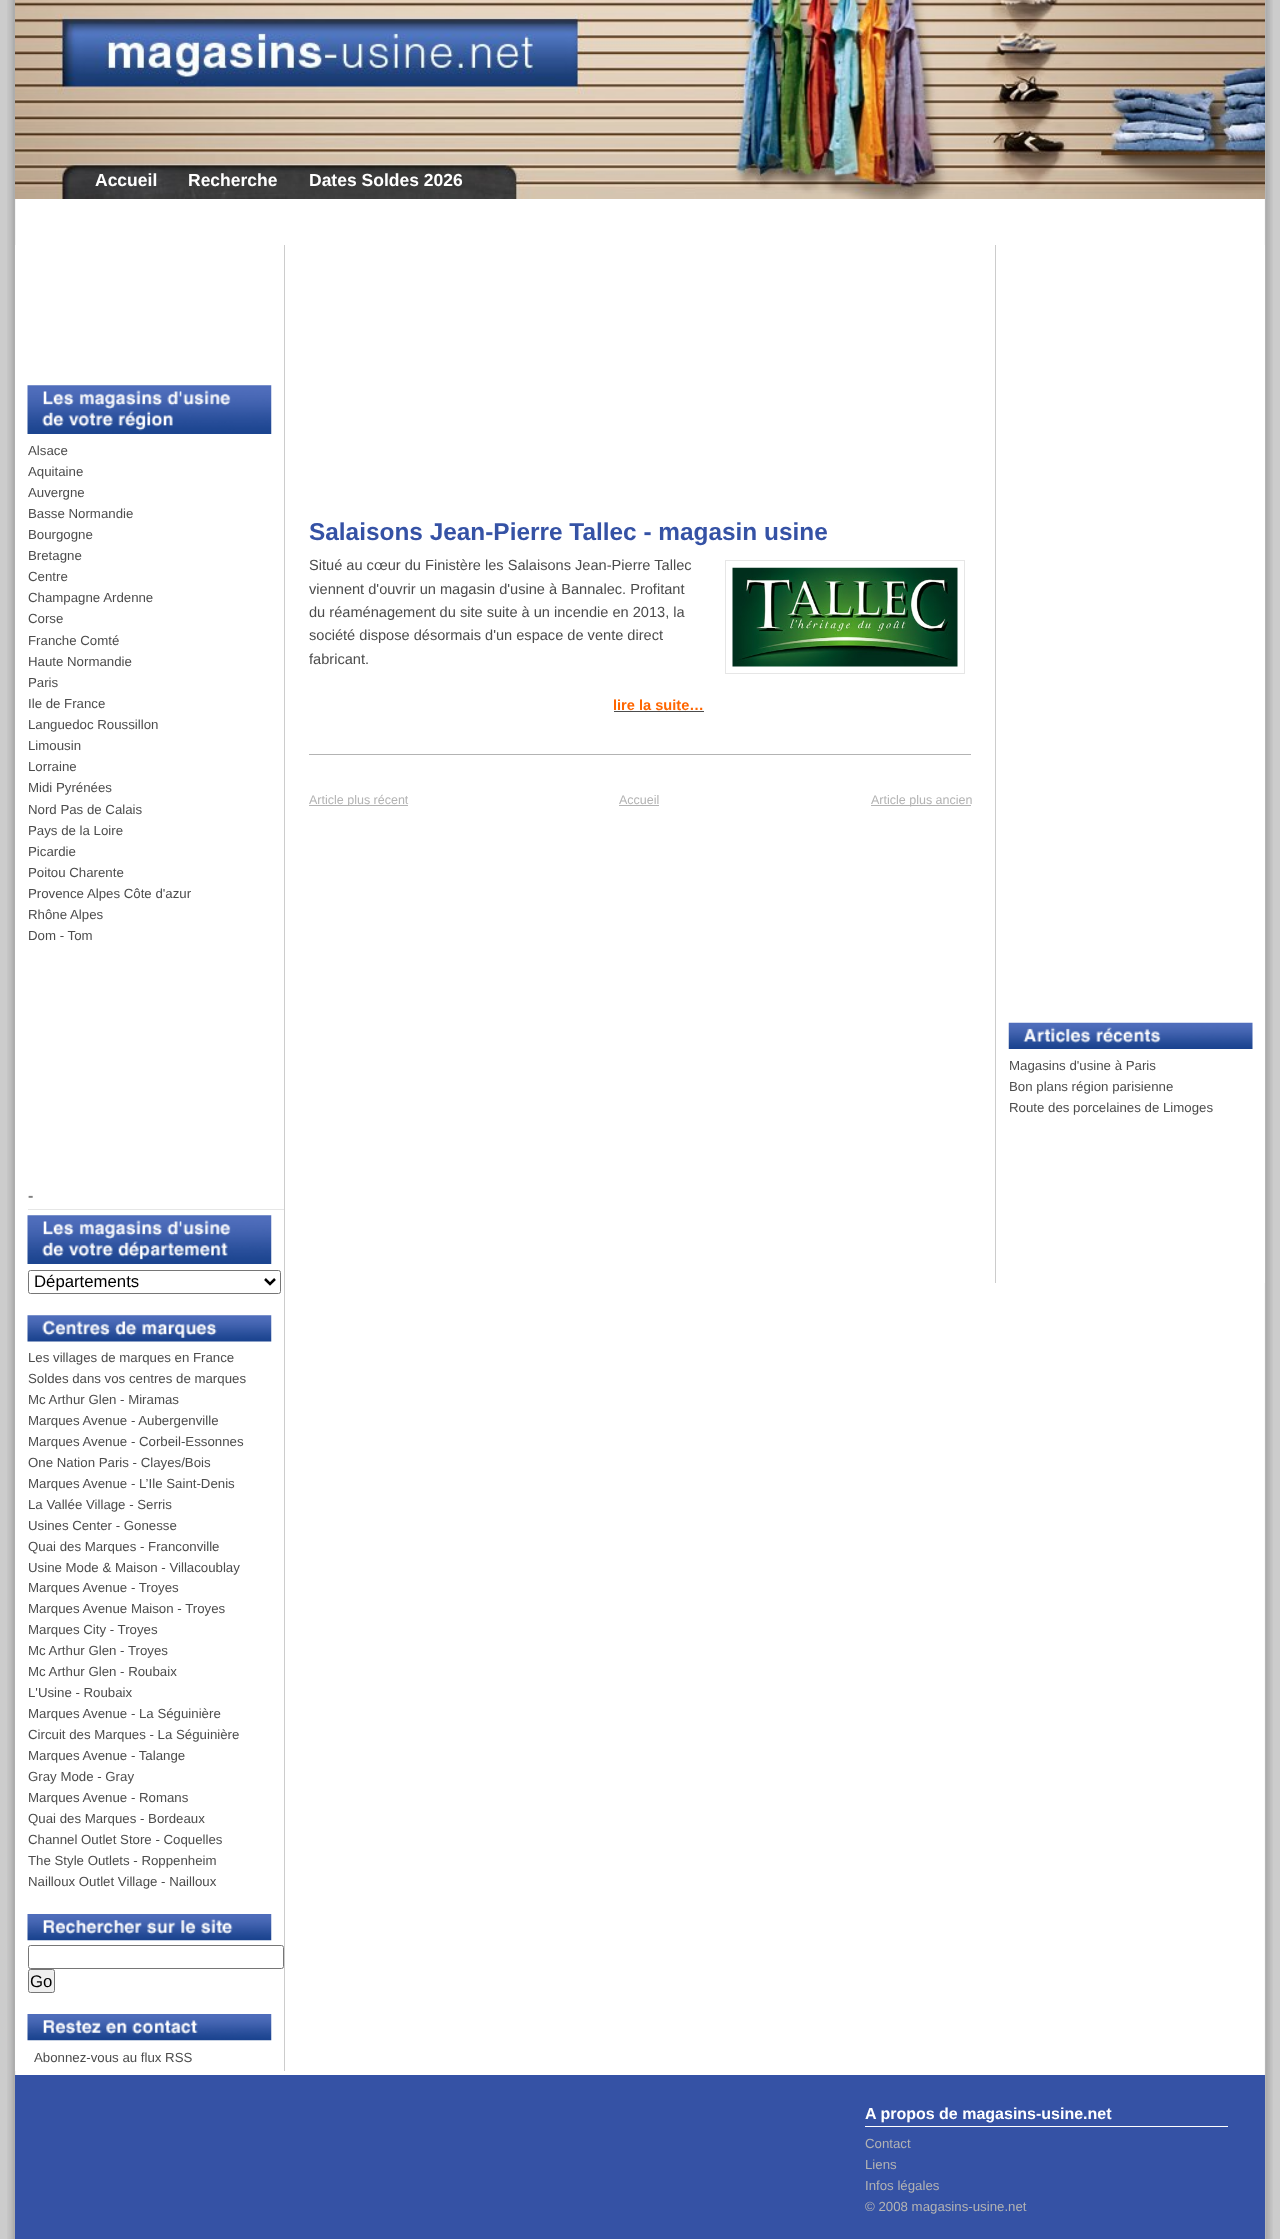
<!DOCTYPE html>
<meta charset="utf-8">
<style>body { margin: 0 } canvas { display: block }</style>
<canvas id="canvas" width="1280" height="2239"></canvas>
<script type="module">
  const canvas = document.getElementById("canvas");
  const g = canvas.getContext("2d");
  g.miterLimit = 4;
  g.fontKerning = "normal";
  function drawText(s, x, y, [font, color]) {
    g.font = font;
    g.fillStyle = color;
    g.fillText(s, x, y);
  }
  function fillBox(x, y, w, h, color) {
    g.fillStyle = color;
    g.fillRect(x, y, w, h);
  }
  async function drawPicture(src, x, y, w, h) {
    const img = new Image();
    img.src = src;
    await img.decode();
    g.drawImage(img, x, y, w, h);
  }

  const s1 = ["bold 17.5px Liberation Sans", "#FFFFFF"];
  const s2 = ["13.25px Liberation Sans", "#4C4C4C"];
  const s3 = ["bold 16px Liberation Sans", "#808080"];
  const s4 = ["16.75px Liberation Sans", "#000000"];
  const s5 = ["bold 24.4px Liberation Sans", "#3552A5"];
  const s6 = ["14.6px Liberation Sans", "#4C4C4C"];
  const s7 = ["bold 14.6px Liberation Sans", "#FF6600"];
  const s8 = ["12.5px Liberation Sans", "#B3B3B3"];
  const s9 = ["bold 16px Liberation Sans", "#FFFFFF"];
  const s10 = ["13.25px Liberation Sans", "#B3B3B3"];

  fillBox(0, 0, 1280, 2239, "#CCCCCC");
  await drawPicture("pic1.png", 7, 0, 1266, 2239);
  await drawPicture("pic2.png", 15, 0, 1250, 199);
  drawText("Accueil", 95, 186, s1);
  drawText("Recherche", 188, 186, s1);
  drawText("Dates Soldes 2026", 309, 186, s1);
  fillBox(15, 245, 1, 1826, "#FFFFFF");
  fillBox(284, 245, 1, 1826, "#CCCCCC");
  await drawPicture("pic3.png", 27, 385, 245, 49);
  drawText("Alsace", 28, 455, s2);
  drawText("Aquitaine", 28, 476, s2);
  drawText("Auvergne", 28, 497, s2);
  drawText("Basse Normandie", 28, 518, s2);
  drawText("Bourgogne", 28, 539, s2);
  drawText("Bretagne", 28, 560, s2);
  drawText("Centre", 28, 581, s2);
  drawText("Champagne Ardenne", 28, 602, s2);
  drawText("Corse", 28, 623, s2);
  drawText("Franche Comté", 28, 645, s2);
  drawText("Haute Normandie", 28, 666, s2);
  drawText("Paris", 28, 687, s2);
  drawText("Ile de France", 28, 708, s2);
  drawText("Languedoc Roussillon", 28, 729, s2);
  drawText("Limousin", 28, 750, s2);
  drawText("Lorraine", 28, 771, s2);
  drawText("Midi Pyrénées", 28, 792, s2);
  drawText("Nord Pas de Calais", 28, 814, s2);
  drawText("Pays de la Loire", 28, 835, s2);
  drawText("Picardie", 28, 856, s2);
  drawText("Poitou Charente", 28, 877, s2);
  drawText("Provence Alpes Côte d'azur", 28, 898, s2);
  drawText("Rhône Alpes", 28, 919, s2);
  drawText("Dom - Tom", 28, 940, s2);
  fillBox(28, 1209, 256, 1, "#E6E6E6");
  drawText("-", 28, 1201, s3);
  await drawPicture("pic4.png", 27, 1215, 245, 49);
  g.beginPath();
  g.roundRect(28.5, 1270.5, 252, 23, 2);
  g.strokeStyle = "#767676";
  g.stroke();
  g.beginPath();
  g.moveTo(265, 1279);
  g.lineTo(270, 1284);
  g.lineTo(275, 1279);
  g.strokeStyle = "#000000";
  g.lineWidth = 2.5;
  g.stroke();
  drawText("Départements", 34, 1287, s4);
  await drawPicture("pic5.png", 27, 1315, 245, 27);
  drawText("Les villages de marques en France", 28, 1362, s2);
  drawText("Soldes dans vos centres de marques", 28, 1383, s2);
  drawText("Mc Arthur Glen - Miramas", 28, 1404, s2);
  drawText("Marques Avenue - Aubergenville", 28, 1425, s2);
  drawText("Marques Avenue - Corbeil-Essonnes", 28, 1446, s2);
  drawText("One Nation Paris - Clayes/Bois", 28, 1467, s2);
  drawText("Marques Avenue - L’Ile Saint-Denis", 28, 1488, s2);
  drawText("La Vallée Village - Serris", 28, 1509, s2);
  drawText("Usines Center - Gonesse", 28, 1530, s2);
  drawText("Quai des Marques - Franconville", 28, 1551, s2);
  drawText("Usine Mode & Maison - Villacoublay", 28, 1572, s2);
  drawText("Marques Avenue - Troyes", 28, 1592, s2);
  drawText("Marques Avenue Maison - Troyes", 28, 1613, s2);
  drawText("Marques City - Troyes", 28, 1634, s2);
  drawText("Mc Arthur Glen - Troyes", 28, 1655, s2);
  drawText("Mc Arthur Glen - Roubaix", 28, 1676, s2);
  drawText("L'Usine - Roubaix", 28, 1697, s2);
  drawText("Marques Avenue - La Séguinière", 28, 1718, s2);
  drawText("Circuit des Marques - La Séguinière", 28, 1739, s2);
  drawText("Marques Avenue - Talange", 28, 1760, s2);
  drawText("Gray Mode - Gray", 28, 1781, s2);
  drawText("Marques Avenue - Romans", 28, 1802, s2);
  drawText("Quai des Marques - Bordeaux", 28, 1823, s2);
  drawText("Channel Outlet Store - Coquelles", 28, 1844, s2);
  drawText("The Style Outlets - Roppenheim", 28, 1865, s2);
  drawText("Nailloux Outlet Village - Nailloux", 28, 1886, s2);
  await drawPicture("pic6.png", 27, 1914, 245, 27);
  g.beginPath();
  g.roundRect(28.5, 1945.5, 255, 23, 2);
  g.strokeStyle = "#767676";
  g.lineWidth = 1;
  g.stroke();
  g.fillStyle = "#EFEFEF";
  g.beginPath();
  g.roundRect(28.5, 1969.5, 26, 23, 2);
  g.fill();
  g.stroke();
  drawText("Go", 30, 1987, s4);
  await drawPicture("pic7.png", 27, 2014, 245, 27);
  drawText("Abonnez-vous au flux RSS", 34, 2062, s2);
  drawText("Salaisons Jean-Pierre Tallec - magasin usine", 309, 540, s5);
  drawText("Situé au cœur du Finistère les Salaisons Jean-Pierre Tallec", 309, 570, s6);
  g.strokeStyle = "#E6E6E6";
  g.strokeRect(725.5, 560.5, 239, 113);
  await drawPicture("pic8.png", 732, 567, 226, 100);
  drawText("viennent d'ouvrir un magasin d'usine à Bannalec. Profitant", 309, 594, s6);
  drawText("du réaménagement du site suite à un incendie en 2013, la", 309, 617, s6);
  drawText("société dispose désormais d'un espace de vente direct", 309, 640, s6);
  drawText("fabricant.", 309, 664, s6);
  drawText("lire la suite…", 613, 710, s7);
  fillBox(614, 711, 90, 1, "#4C4C4C");
  fillBox(309, 754, 662, 1, "#B3B3B3");
  fillBox(309, 805, 99, 1, "#B3B3B3");
  g.save();
  g.beginPath();
  g.rect(309, 793, 662, 13);
  g.clip();
  drawText("Article plus récent", 309, 804, s8);
  g.restore();
  drawText("Accueil", 619, 804, s8);
  fillBox(619, 805, 40, 1, "#B3B3B3");
  fillBox(871, 805, 100, 1, "#B3B3B3");
  drawText("Article plus ancien", 871, 804, s8);
  fillBox(1264, 245, 1, 1038, "#FFFFFF");
  fillBox(995, 245, 1, 1038, "#CCCCCC");
  await drawPicture("pic9.png", 1008, 1022, 245, 27);
  drawText("Magasins d'usine à Paris", 1009, 1070, s2);
  drawText("Bon plans région parisienne", 1009, 1091, s2);
  drawText("Route des porcelaines de Limoges", 1009, 1112, s2);
  fillBox(15, 2075, 1250, 164, "#3552A5");
  fillBox(865, 2126, 363, 1, "#FFFFFF");
  drawText("A propos de magasins-usine.net", 865, 2119, s9);
  drawText("Contact", 865, 2148, s10);
  drawText("Liens", 865, 2169, s10);
  drawText("Infos légales", 865, 2190, s10);
  drawText("© 2008 magasins-usine.net", 865, 2211, s10);
</script>
